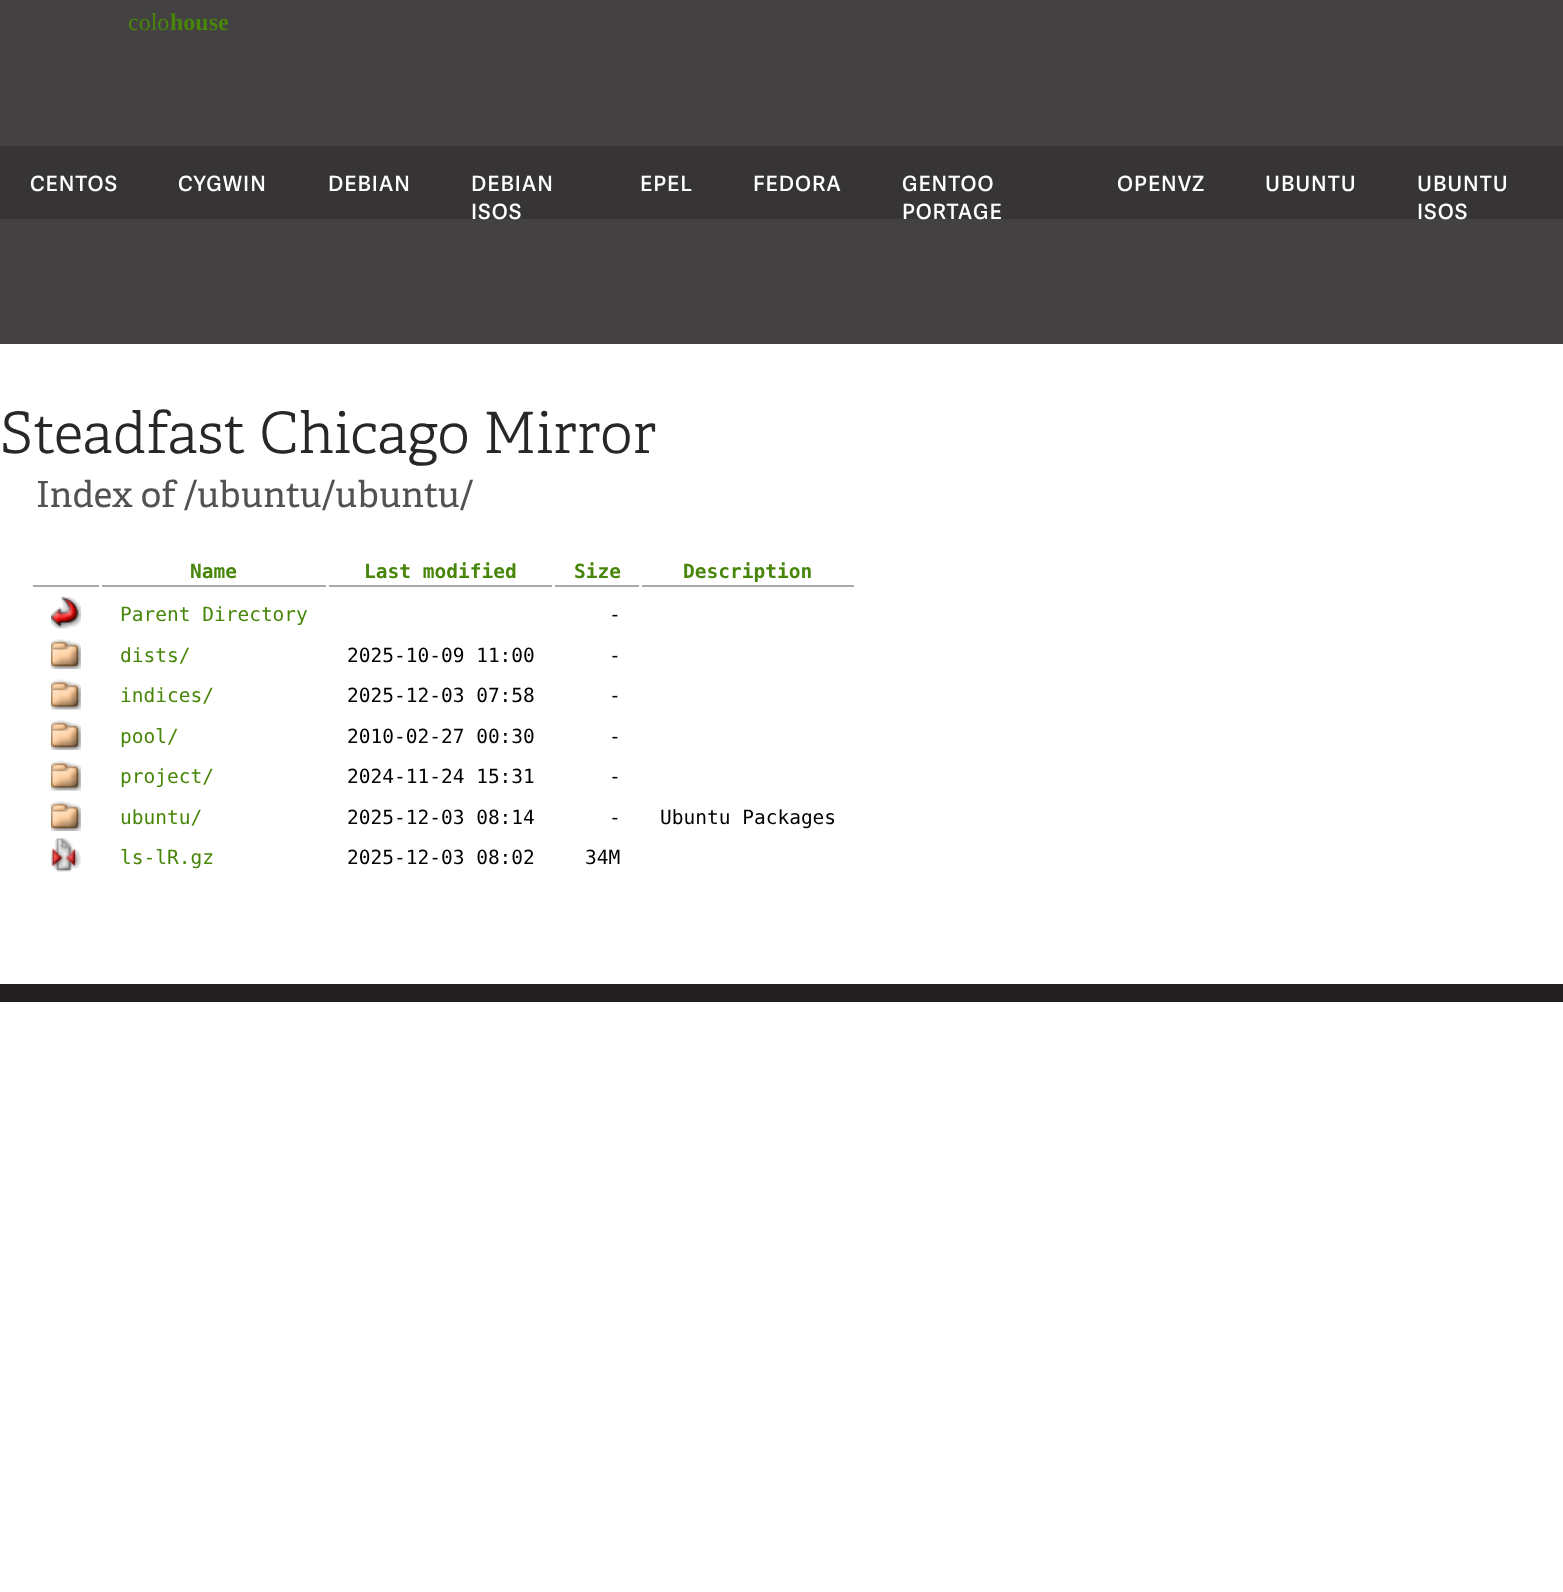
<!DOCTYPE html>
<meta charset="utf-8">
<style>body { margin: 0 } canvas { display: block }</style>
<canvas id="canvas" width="1563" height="1592"></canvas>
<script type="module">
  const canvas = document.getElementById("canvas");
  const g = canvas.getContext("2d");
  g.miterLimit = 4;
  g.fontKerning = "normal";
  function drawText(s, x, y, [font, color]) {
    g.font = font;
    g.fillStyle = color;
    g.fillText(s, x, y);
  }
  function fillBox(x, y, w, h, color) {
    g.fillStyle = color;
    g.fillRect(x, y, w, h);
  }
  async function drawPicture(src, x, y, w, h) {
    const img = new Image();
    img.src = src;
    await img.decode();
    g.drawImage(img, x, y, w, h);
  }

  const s1 = ["24px Liberation Serif", "#478609"];
  const s2 = ["bold 24px Liberation Serif", "#478609"];
  const s3 = ["600 21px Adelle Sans", "#FFFFFF"];
  const s4 = ["300 57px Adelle", "#272727"];
  const s5 = ["36px Adelle", "#525252"];
  const s6 = ["bold 19.5px DejaVu Sans Mono", "#478609"];
  const s7 = ["19.5px DejaVu Sans Mono", "#478609"];
  const s8 = ["19.5px DejaVu Sans Mono", "#000000"];

  fillBox(0, 0, 1563, 1592, "#FFFFFF");
  fillBox(0, 0, 1563, 344, "#444142");
  drawText("colo", 128, 30, s1);
  drawText("house", 170, 30, s2);
  fillBox(0, 146, 1563, 73, "#363435");
  g.letterSpacing = "1px";
  drawText("CENTOS", 30, 191, s3);
  drawText("CYGWIN", 178, 191, s3);
  drawText("DEBIAN", 328, 191, s3);
  drawText("DEBIAN", 471, 191, s3);
  drawText("ISOS", 471, 219, s3);
  drawText("EPEL", 640, 191, s3);
  drawText("FEDORA", 753, 191, s3);
  drawText("GENTOO", 902, 191, s3);
  drawText("PORTAGE", 902, 219, s3);
  drawText("OPENVZ", 1117, 191, s3);
  drawText("UBUNTU", 1265, 191, s3);
  drawText("UBUNTU", 1417, 191, s3);
  drawText("ISOS", 1417, 219, s3);
  g.letterSpacing = "0px";
  drawText("Steadfast Chicago Mirror", 0, 453, s4);
  drawText("Index of /ubuntu/ubuntu/", 36, 507, s5);
  fillBox(102, 585, 224, 2, "#AAAAAA");
  drawText("Name", 190, 578, s6);
  fillBox(329, 585, 223, 2, "#AAAAAA");
  drawText("Last modified", 364, 578, s6);
  fillBox(555, 585, 84, 2, "#AAAAAA");
  drawText("Size", 574, 578, s6);
  fillBox(642, 585, 212, 2, "#AAAAAA");
  drawText("Description", 683, 578, s6);
  fillBox(33, 585, 66, 2, "#AAAAAA");
  await drawPicture("pic1.png", 51, 596, 30, 33);
  drawText("Parent Directory", 120, 621, s7);
  drawText("-", 609, 621, s8);
  await drawPicture("pic2.png", 51, 639, 30, 30);
  drawText("dists/", 120, 662, s7);
  drawText("2025-10-09 11:00", 347, 662, s8);
  drawText("-", 609, 662, s8);
  await drawPicture("pic3.png", 51, 679, 30, 31);
  drawText("indices/", 120, 702, s7);
  drawText("2025-12-03 07:58", 347, 702, s8);
  drawText("-", 609, 702, s8);
  await drawPicture("pic2.png", 51, 720, 30, 30);
  drawText("pool/", 120, 743, s7);
  drawText("2010-02-27 00:30", 347, 743, s8);
  drawText("-", 609, 743, s8);
  await drawPicture("pic3.png", 51, 760, 30, 31);
  drawText("project/", 120, 783, s7);
  drawText("2024-11-24 15:31", 347, 783, s8);
  drawText("-", 609, 783, s8);
  await drawPicture("pic2.png", 51, 801, 30, 30);
  drawText("ubuntu/", 120, 824, s7);
  drawText("2025-12-03 08:14", 347, 824, s8);
  drawText("-", 609, 824, s8);
  drawText("Ubuntu Packages", 660, 824, s8);
  await drawPicture("pic4.png", 51, 838, 30, 34);
  drawText("ls-lR.gz", 120, 864, s7);
  drawText("2025-12-03 08:02", 347, 864, s8);
  drawText("34M", 585, 864, s8);
  fillBox(0, 984, 1563, 18, "#231F20");
</script>
